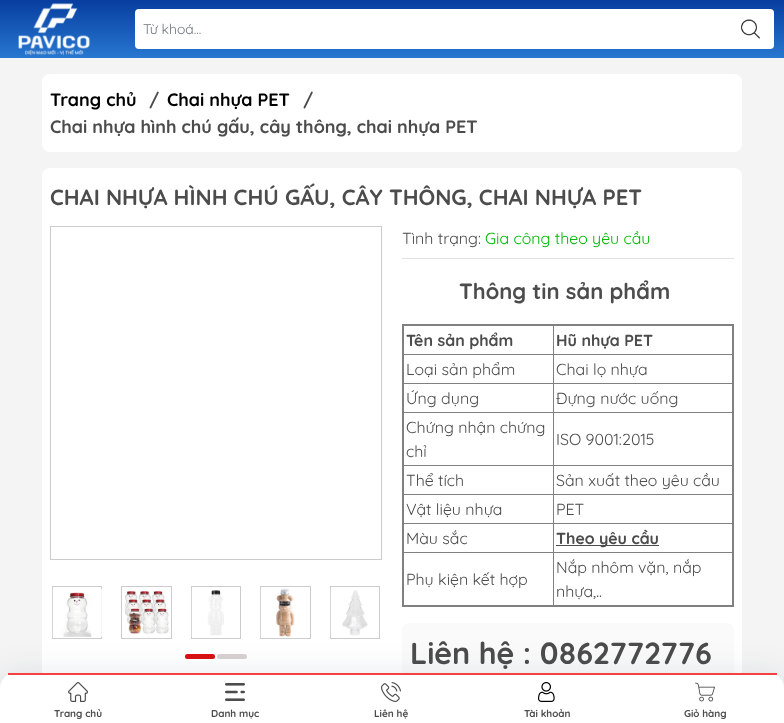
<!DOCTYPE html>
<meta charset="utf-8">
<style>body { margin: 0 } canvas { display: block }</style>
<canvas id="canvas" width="784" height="723"></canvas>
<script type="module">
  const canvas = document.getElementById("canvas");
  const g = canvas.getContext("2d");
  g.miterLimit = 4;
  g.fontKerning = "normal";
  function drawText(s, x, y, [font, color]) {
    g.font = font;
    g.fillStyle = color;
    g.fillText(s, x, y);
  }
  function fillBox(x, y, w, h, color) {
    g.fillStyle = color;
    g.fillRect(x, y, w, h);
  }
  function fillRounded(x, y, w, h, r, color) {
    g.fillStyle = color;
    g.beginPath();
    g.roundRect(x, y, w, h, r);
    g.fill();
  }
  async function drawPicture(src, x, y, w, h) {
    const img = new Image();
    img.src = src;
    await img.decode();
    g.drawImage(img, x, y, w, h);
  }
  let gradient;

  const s1 = ["14px Quicksand", "#6C757D"];
  const s2 = ["bold 18px Quicksand", "#000000"];
  const s3 = ["bold 18px Quicksand", "#4C4C4C"];
  const s4 = ["bold 22px Quicksand", "#4C4C4C"];
  const s5 = ["16px Quicksand", "#4C4C4C"];
  const s6 = ["16px Quicksand", "#00B907"];
  const s7 = ["bold 16px Quicksand", "#4C4C4C"];
  const s8 = ["bold 30.5px Quicksand", "#4C4C4C"];
  const s9 = ["bold 10px Quicksand", "#4C4C4C"];

  fillBox(0, 0, 784, 723, "#F4F4F4");
  gradient = g.createLinearGradient(392, 0, 392, 58);
  gradient.addColorStop(0, "#073EA0");
  gradient.addColorStop(1, "#2777D0");
  g.fillStyle = gradient;
  g.fillRect(0, 0, 784, 58);
  await drawPicture("pic1.png", 18, 3, 73, 53);
  fillRounded(135, 9, 639, 40, 4, "#FFFFFF");
  drawText("Từ khoá...", 143, 34, s1);
  await drawPicture("pic2.png", 741, 19, 19, 20);
  fillRounded(42, 74, 700, 78, 8, "#FFFFFF");
  drawText("Trang chủ", 50, 106, s2);
  drawText("/", 149, 106, s3);
  drawText("Chai nhựa PET", 167, 106, s2);
  drawText("/", 303, 106, s3);
  drawText("Chai nhựa hình chú gấu, cây thông, chai nhựa PET", 50, 133, s3);
  fillRounded(42, 168, 700, 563, 8, "#FFFFFF");
  drawText("CHAI NHỰA HÌNH CHÚ GẤU, CÂY THÔNG, CHAI NHỰA PET", 50, 205, s4);
  g.strokeStyle = "#CCCCCC";
  g.strokeRect(50.5, 226.5, 331, 333);
  g.strokeRect(52.5, 586.5, 49, 52);
  await drawPicture("pic3.png", 52, 588, 50, 49);
  g.strokeRect(121.5, 586.5, 50, 52);
  await drawPicture("pic4.png", 124, 591, 45, 43);
  g.strokeRect(191.5, 586.5, 49, 52);
  await drawPicture("pic5.png", 191, 589, 33, 48);
  g.strokeRect(260.5, 586.5, 50, 52);
  await drawPicture("pic6.png", 260, 588, 35, 49);
  g.strokeRect(330.5, 586.5, 49, 52);
  await drawPicture("pic7.png", 330, 589, 38, 48);
  fillRounded(185, 654, 30, 5, 2.5, "#FF0000");
  fillRounded(185, 654, 30, 5, 2.5, "rgba(104, 69, 69, 0.25)");
  fillRounded(217, 654, 30, 5, 2.5, "#D9D1D1");
  drawText("Tình trạng:", 402, 244, s5);
  drawText("Gia công theo yêu cầu", 485, 244, s6);
  fillBox(402, 258, 332, 1, "#DEE2E6");
  drawText("Thông tin sản phẩm", 459, 299, s4);
  fillBox(553, 354, 181, 1, "#808080");
  fillBox(553, 383, 181, 1, "#808080");
  fillBox(553, 412, 181, 1, "#808080");
  fillBox(553, 465, 181, 1, "#808080");
  fillBox(553, 494, 181, 1, "#808080");
  fillBox(553, 523, 181, 1, "#808080");
  fillBox(553, 552, 181, 1, "#808080");
  fillBox(553, 552, 1, 55, "#808080");
  fillBox(403, 552, 151, 1, "#808080");
  fillBox(553, 523, 1, 30, "#808080");
  fillBox(403, 523, 151, 1, "#808080");
  fillBox(553, 494, 1, 30, "#808080");
  fillBox(403, 494, 151, 1, "#808080");
  fillBox(553, 465, 1, 30, "#808080");
  fillBox(403, 465, 151, 1, "#808080");
  fillBox(553, 412, 1, 54, "#808080");
  fillBox(403, 412, 151, 1, "#808080");
  fillBox(553, 383, 1, 30, "#808080");
  fillBox(403, 383, 151, 1, "#808080");
  fillBox(553, 354, 1, 30, "#808080");
  fillBox(403, 354, 151, 1, "#808080");
  fillBox(553, 325, 1, 30, "#808080");
  fillBox(402, 324, 332, 2, "#808080");
  fillBox(732, 324, 2, 283, "#808080");
  fillBox(402, 605, 332, 2, "#808080");
  fillBox(402, 324, 2, 283, "#808080");
  drawText("Tên sản phẩm", 406, 346, s7);
  drawText("Hũ nhựa PET", 556, 346, s7);
  drawText("Loại sản phẩm", 406, 375, s5);
  drawText("Chai lọ nhựa", 556, 375, s5);
  drawText("Ứng dụng", 406, 404, s5);
  drawText("Đựng nước uống", 556, 404, s5);
  drawText("Chứng nhận chứng", 406, 433, s5);
  drawText("chỉ", 406, 457, s5);
  drawText("ISO 9001:2015", 556, 445, s5);
  drawText("Thể tích", 406, 486, s5);
  drawText("Sản xuất theo yêu cầu", 556, 486, s5);
  drawText("Vật liệu nhựa", 406, 515, s5);
  drawText("PET", 556, 515, s5);
  drawText("Màu sắc", 406, 544, s5);
  fillBox(556, 545, 103, 1, "#4C4C4C");
  drawText("Theo yêu cầu", 556, 544, s7);
  drawText("Phụ kiện kết hợp", 406, 585, s5);
  drawText("Nắp nhôm vặn, nắp", 556, 573, s5);
  drawText("nhựa,..", 556, 597, s5);
  fillRounded(402, 623, 332, 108, 8, "#FAFAFA");
  drawText("Liên hệ : 0862772776", 410, 664, s8);
  g.fillStyle = "rgba(16, 42, 67, 0.15)";
  g.filter = "blur(18px)";
  g.beginPath();
  g.roundRect(0, 680, 784, 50, 15);
  g.fill();
  g.filter = "none";
  g.fillStyle = "#FFFFFF";
  g.beginPath();
  g.roundRect(0, 673, 784, 50, [15, 15, 0, 0]);
  g.fill();
  fillBox(8, 673, 769, 2, "#F64140");
  await drawPicture("pic8.png", 68, 682, 20, 20);
  drawText("Trang chủ", 54, 717, s9);
  await drawPicture("pic9.png", 225, 683, 20, 18);
  drawText("Danh mục", 211, 717, s9);
  await drawPicture("pic10.png", 381, 682, 20, 20);
  drawText("Liên hệ", 374, 717, s9);
  await drawPicture("pic11.png", 538, 682, 17, 20);
  drawText("Tài khoản", 524, 717, s9);
  await drawPicture("pic12.png", 695, 682, 20, 20);
  drawText("Giỏ hàng", 684, 717, s9);
</script>
